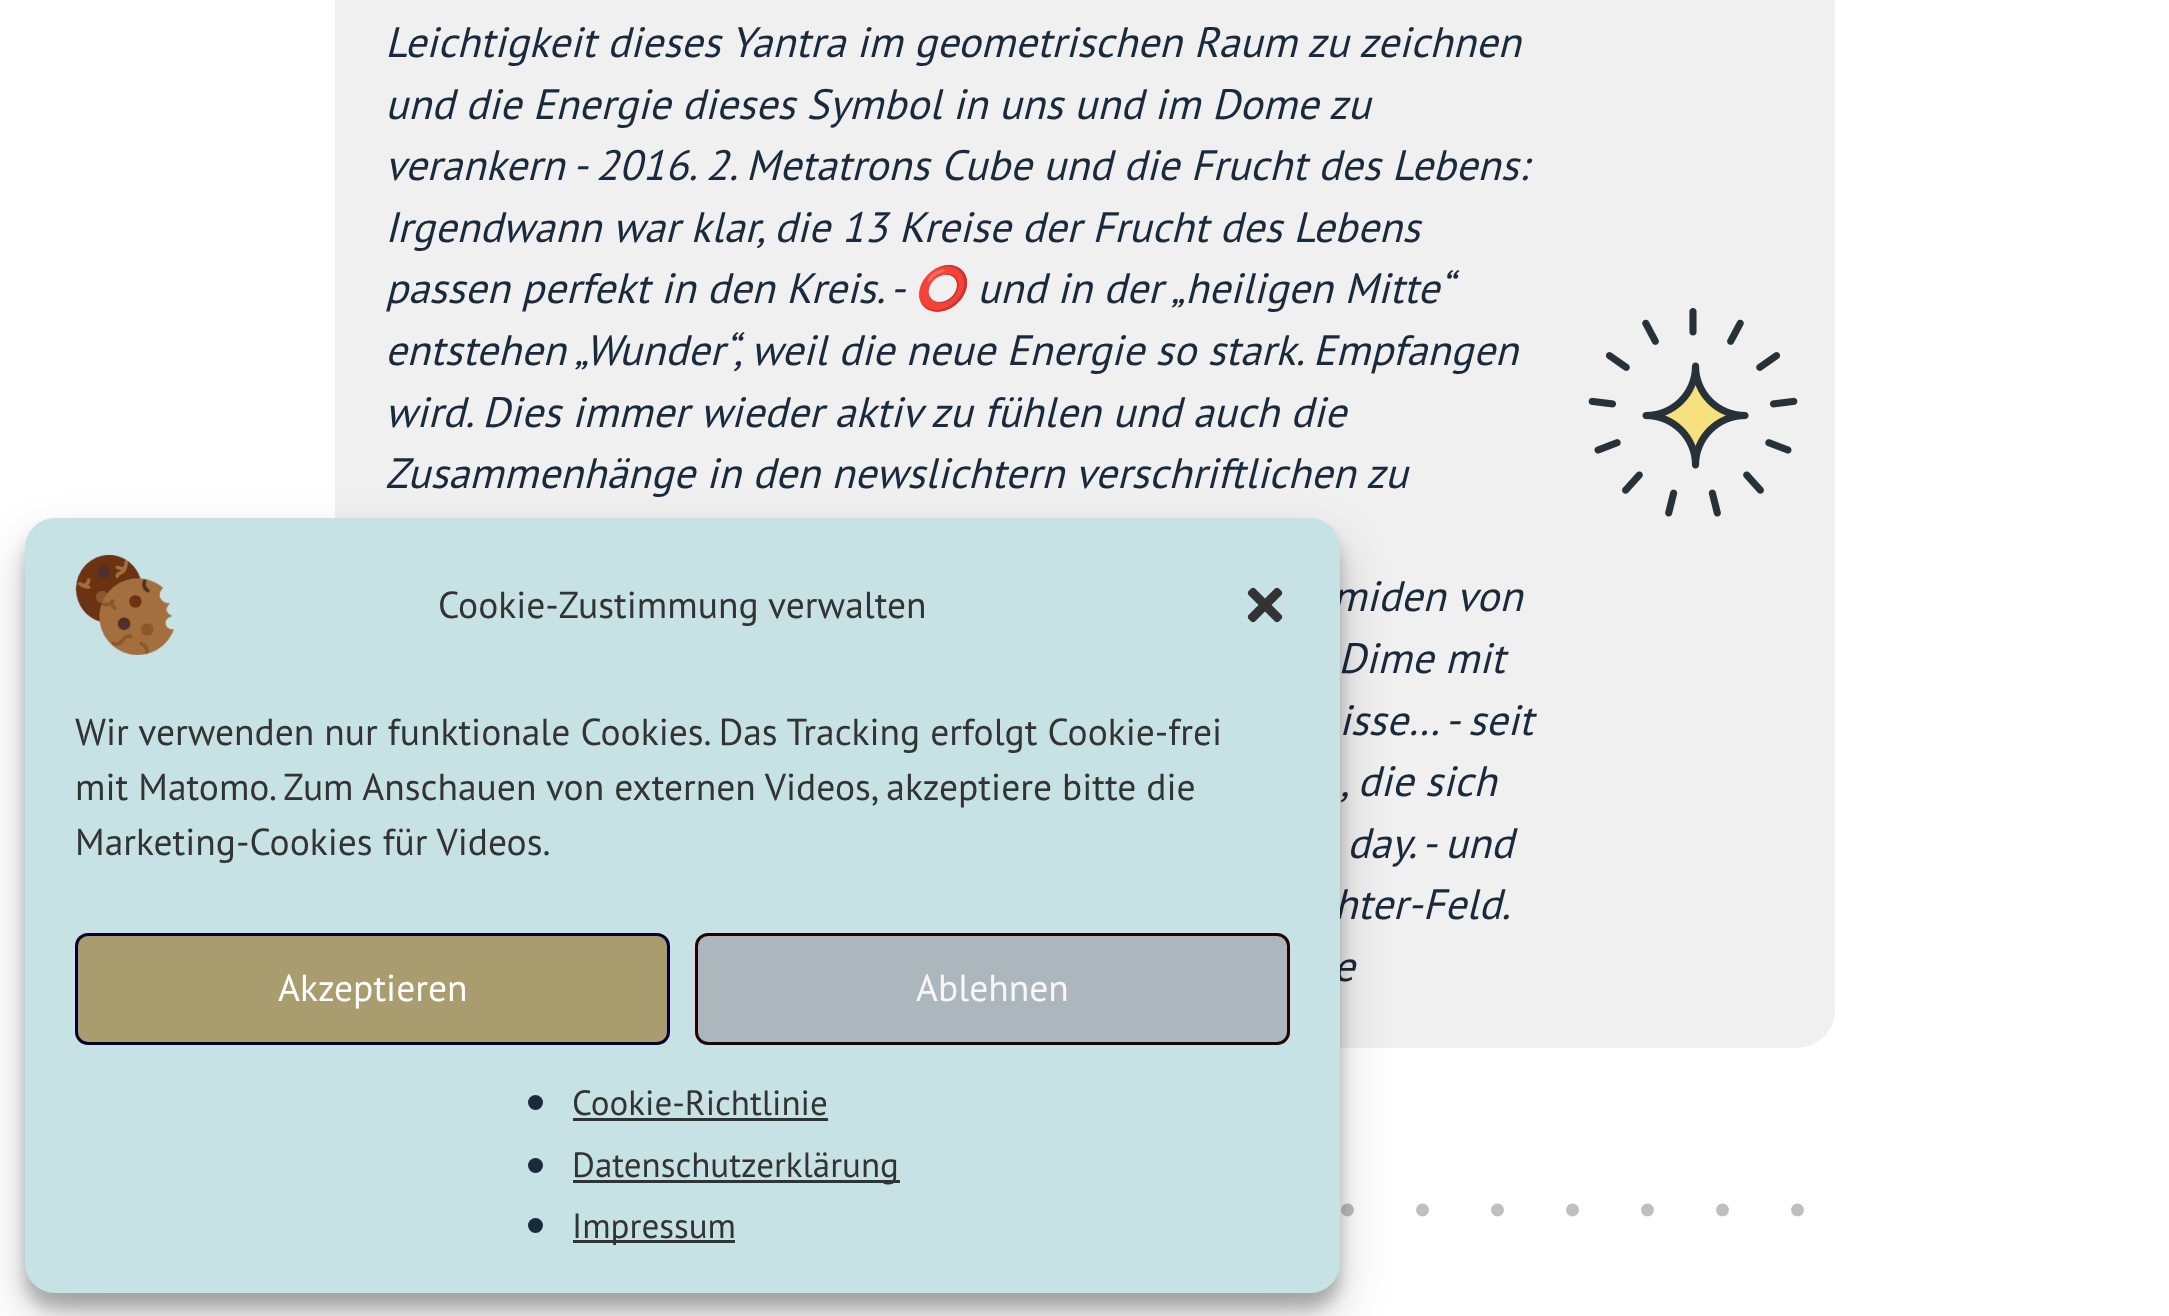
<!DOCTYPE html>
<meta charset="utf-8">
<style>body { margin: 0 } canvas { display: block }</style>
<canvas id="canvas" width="2169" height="1316"></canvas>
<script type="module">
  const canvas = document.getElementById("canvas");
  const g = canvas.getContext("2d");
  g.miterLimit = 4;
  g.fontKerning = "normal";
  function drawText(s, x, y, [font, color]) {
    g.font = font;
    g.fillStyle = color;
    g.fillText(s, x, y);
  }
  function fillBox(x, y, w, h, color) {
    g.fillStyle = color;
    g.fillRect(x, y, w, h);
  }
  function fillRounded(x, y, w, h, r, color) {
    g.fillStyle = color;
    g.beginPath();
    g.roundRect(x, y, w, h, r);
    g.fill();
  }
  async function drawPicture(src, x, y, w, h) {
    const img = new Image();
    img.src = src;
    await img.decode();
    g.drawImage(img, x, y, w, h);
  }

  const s1 = ["italic 42.5px PT Sans", "#192A3D"];
  const s2 = ["italic 42.5px Noto Color Emoji", "#192A3D"];
  const s3 = ["37.5px PT Sans", "#333333"];
  const s4 = ["37.5px PT Sans", "#FFFFFF"];
  const s5 = ["37.5px PT Sans", "#F7F7F7"];
  const s6 = ["35px PT Sans", "#333333"];

  fillBox(0, 0, 2169, 1316, "#FFFFFF");
  fillRounded(335, -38, 1500, 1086, 38, "#F0F0F0");
  await drawPicture("pic1.png", 1588, 308, 210, 209);
  drawText("Leichtigkeit dieses Yantra im geometrischen Raum zu zeichnen", 385, 57, s1);
  drawText("und die Energie dieses Symbol in uns und im Dome zu", 385, 119, s1);
  drawText("verankern - 2016. 2. Metatrons Cube und die Frucht des Lebens:", 385, 180, s1);
  drawText("Irgendwann war klar, die 13 Kreise der Frucht des Lebens", 385, 242, s1);
  drawText("passen perfekt in den Kreis. -", 385, 303, s1);
  drawText("⭕️", 913, 303, s2);
  drawText("und in der „heiligen Mitte“", 977, 303, s1);
  drawText("entstehen „Wunder“, weil die neue Energie so stark. Empfangen", 385, 365, s1);
  drawText("wird. Dies immer wieder aktiv zu fühlen und auch die", 385, 427, s1);
  drawText("Zusammenhänge in den newslichtern verschriftlichen zu", 385, 488, s1);
  drawText("miden von", 1332, 611, s1);
  drawText("Dime mit", 1338, 673, s1);
  drawText("isse… - seit", 1339, 735, s1);
  drawText(", die sich", 1340, 796, s1);
  drawText("day. - und", 1347, 858, s1);
  drawText("hter-Feld.", 1334, 919, s1);
  drawText("e", 1333, 981, s1);
  await drawPicture("pic2.png", 1341, 1203, 13, 14);
  await drawPicture("pic2.png", 1416, 1203, 13, 14);
  await drawPicture("pic2.png", 1491, 1203, 13, 14);
  await drawPicture("pic2.png", 1566, 1203, 13, 14);
  await drawPicture("pic2.png", 1641, 1203, 13, 14);
  await drawPicture("pic2.png", 1716, 1203, 13, 14);
  await drawPicture("pic2.png", 1791, 1203, 13, 14);
  g.fillStyle = "rgba(0, 0, 0, 0.23)";
  g.filter = "blur(7.5px)";
  g.beginPath();
  g.roundRect(25, 533, 1315, 775, 30);
  g.fill();
  g.filter = "none";
  g.fillStyle = "rgba(0, 0, 0, 0.19)";
  g.filter = "blur(25px)";
  g.beginPath();
  g.roundRect(25, 543, 1315, 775, 30);
  g.fill();
  g.filter = "none";
  fillRounded(25, 518, 1315, 775, 30, "#C7E2E4");
  await drawPicture("pic3.png", 75, 555, 100, 100);
  drawText("Cookie-Zustimmung verwalten", 438, 618, s3);
  await drawPicture("pic4.png", 1247, 587, 36, 36);
  drawText("Wir verwenden nur funktionale Cookies. Das Tracking erfolgt Cookie-frei", 75, 745, s3);
  drawText("mit Matomo. Zum Anschauen von externen Videos, akzeptiere bitte die", 75, 800, s3);
  drawText("Marketing-Cookies für Videos.", 75, 855, s3);
  g.fillStyle = "#A99D70";
  g.beginPath();
  g.roundRect(76.5, 934.5, 592, 109, 11.5);
  g.fill();
  g.strokeStyle = "#090030";
  g.lineWidth = 3;
  g.stroke();
  drawText("Akzeptieren", 278, 1001, s4);
  g.fillStyle = "#ABB7BC";
  g.beginPath();
  g.roundRect(696.5, 934.5, 592, 109, 11.5);
  g.fill();
  g.strokeStyle = "#230200";
  g.stroke();
  drawText("Ablehnen", 916, 1001, s5);
  g.fillStyle = "#192A3D";
  g.beginPath();
  g.arc(535.5, 1102.5, 7.5, 0, Math.PI * 2);
  g.fill();
  drawText("Cookie-Richtlinie", 572, 1115, s6);
  fillBox(573, 1118, 255, 3, "#333333");
  g.fillStyle = "#192A3D";
  g.beginPath();
  g.arc(535.5, 1165.5, 7.5, 0, Math.PI * 2);
  g.fill();
  fillBox(573, 1180, 327, 3, "#333333");
  drawText("Datenschutzerklärung", 572, 1177, s6);
  g.fillStyle = "#192A3D";
  g.beginPath();
  g.arc(535.5, 1225.5, 7.5, 0, Math.PI * 2);
  g.fill();
  fillBox(573, 1240, 162, 3, "#333333");
  drawText("Impressum", 572, 1238, s6);
</script>
